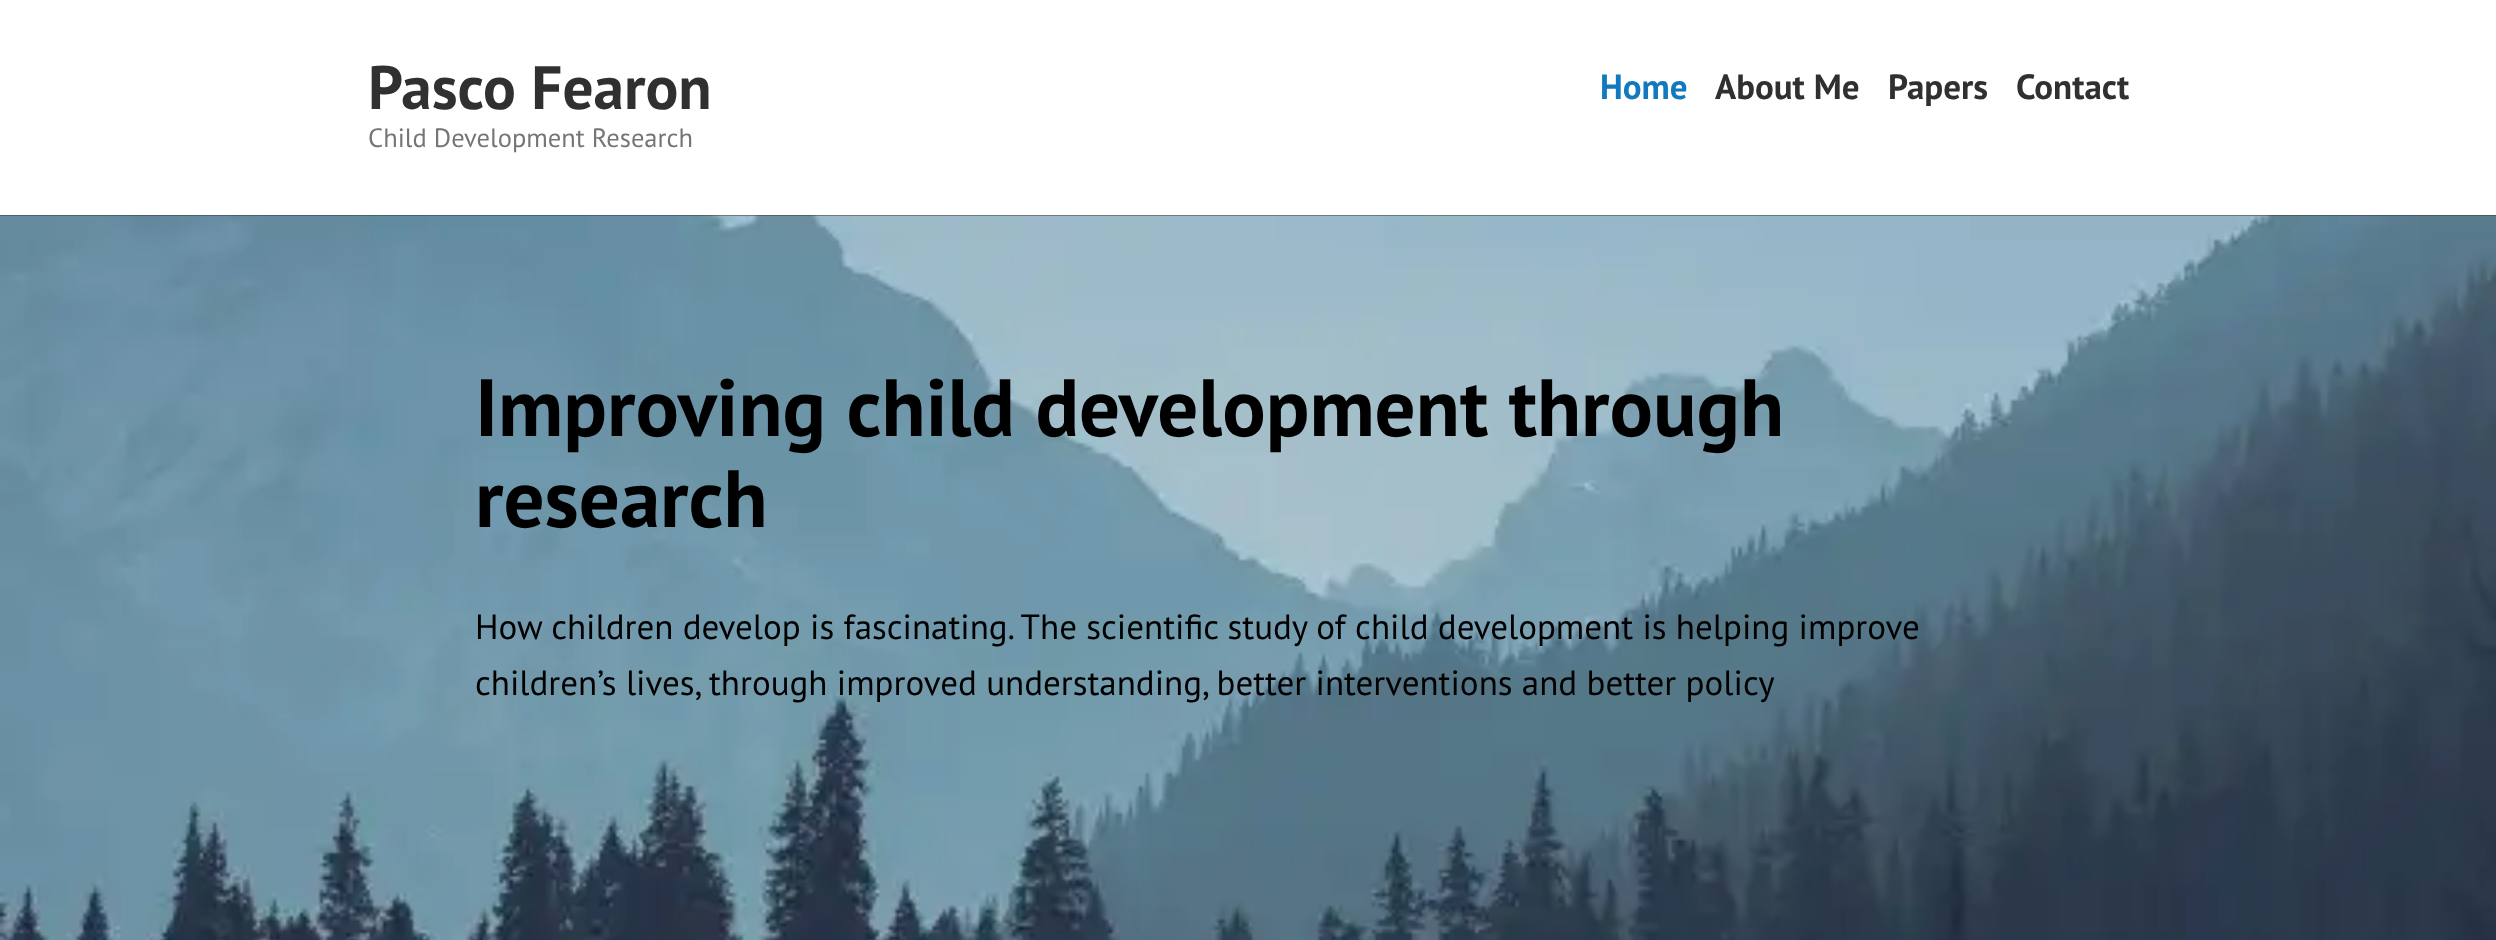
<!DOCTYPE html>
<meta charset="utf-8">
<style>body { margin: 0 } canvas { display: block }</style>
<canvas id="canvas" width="2496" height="940"></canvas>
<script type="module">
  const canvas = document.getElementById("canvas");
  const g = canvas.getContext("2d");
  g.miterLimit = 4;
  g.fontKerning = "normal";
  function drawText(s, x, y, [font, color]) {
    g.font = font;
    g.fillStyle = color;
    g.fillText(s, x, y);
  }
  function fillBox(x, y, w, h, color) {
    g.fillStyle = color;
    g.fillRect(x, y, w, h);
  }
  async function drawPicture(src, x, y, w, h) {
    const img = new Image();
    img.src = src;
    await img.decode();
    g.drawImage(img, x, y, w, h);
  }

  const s1 = ["bold 61.25px PT Sans", "#303030"];
  const s2 = ["bold 35px PT Sans", "#1279BE"];
  const s3 = ["bold 35px PT Sans", "#303030"];
  const s4 = ["26.5px PT Sans", "#757575"];
  const s5 = ["bold 81px PT Sans", "#000000"];
  const s6 = ["35px PT Sans", "#000000"];

  fillBox(0, 0, 2496, 940, "#FFFFFF");
  drawText("Pasco Fearon", 368, 109, s1);
  drawText("Home", 1600, 99, s2);
  drawText("About Me", 1715, 99, s3);
  drawText("Papers", 1888, 99, s3);
  drawText("Contact", 2016, 99, s3);
  drawText("Child Development Research", 368, 147, s4);
  fillBox(0, 215, 2496, 1, "#2B2B2B");
  await drawPicture("pic1.png", 0, 215, 2496, 725);
  drawText("Improving child development through", 475, 436, s5);
  drawText("research", 475, 527, s5);
  drawText("How children develop is fascinating. The scientific study of child development is helping improve", 475, 639, s6);
  drawText("children’s lives, through improved understanding, better interventions and better policy", 475, 695, s6);
</script>
